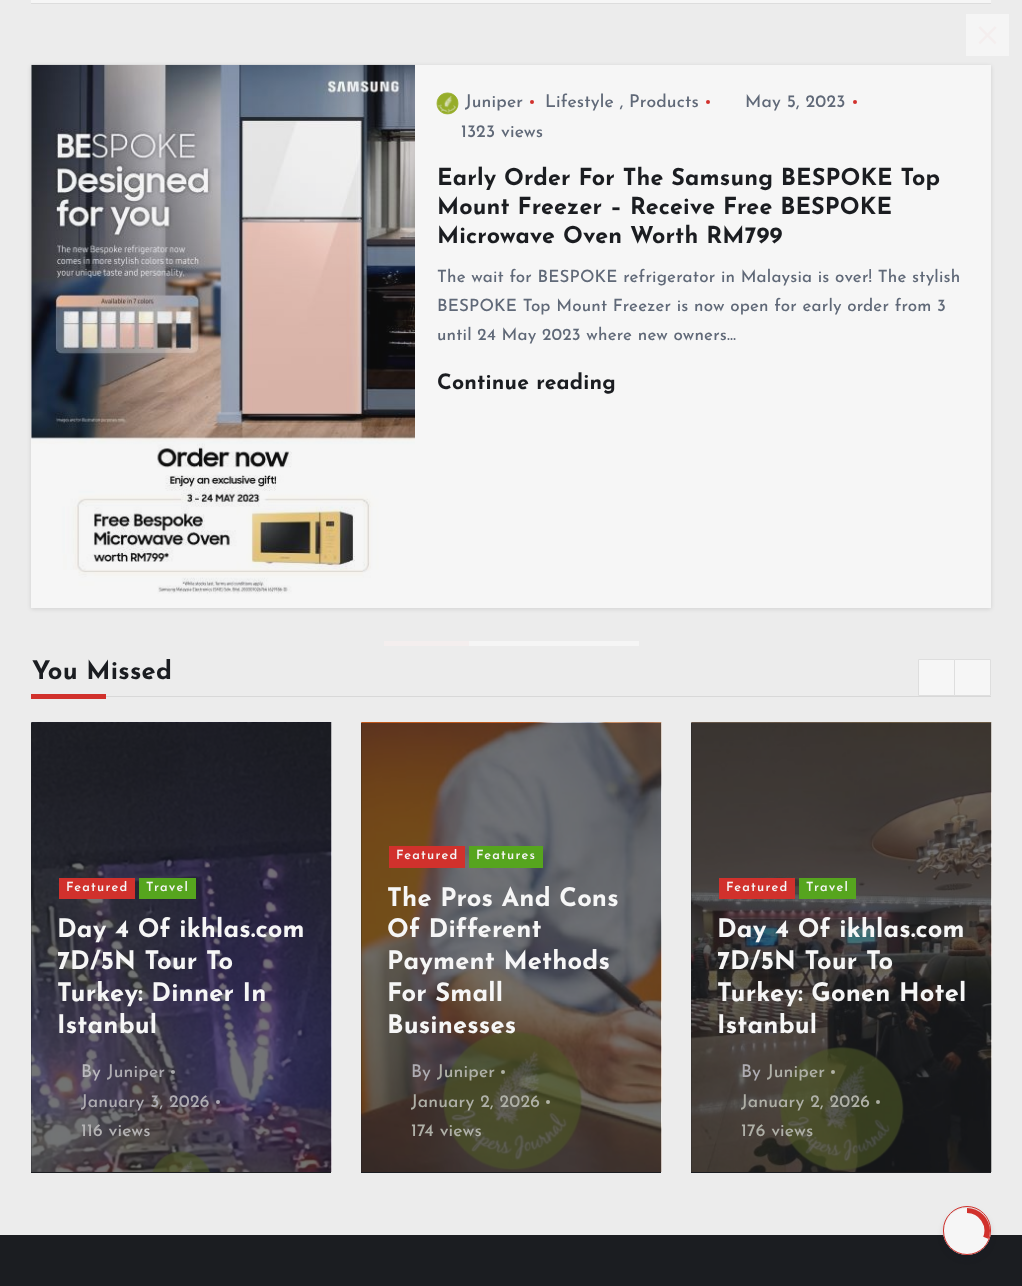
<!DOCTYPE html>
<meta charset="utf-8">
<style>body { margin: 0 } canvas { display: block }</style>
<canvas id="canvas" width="1022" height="1286"></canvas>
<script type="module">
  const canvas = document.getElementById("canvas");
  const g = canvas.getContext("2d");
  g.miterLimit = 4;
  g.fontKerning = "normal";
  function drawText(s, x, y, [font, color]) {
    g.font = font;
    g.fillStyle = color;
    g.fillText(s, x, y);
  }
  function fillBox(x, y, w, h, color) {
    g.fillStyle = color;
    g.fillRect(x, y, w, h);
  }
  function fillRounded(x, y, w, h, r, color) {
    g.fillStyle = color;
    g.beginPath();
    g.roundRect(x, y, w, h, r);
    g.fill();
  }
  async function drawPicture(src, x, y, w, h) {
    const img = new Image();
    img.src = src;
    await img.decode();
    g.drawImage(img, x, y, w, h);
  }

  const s1 = ["500 17.5px Josefin Sans", "#606978"];
  const s2 = ["bold 23.3px Josefin Sans", "#1B1D21"];
  const s3 = ["500 16.95px Josefin Sans", "#606978"];
  const s4 = ["bold 21.25px Josefin Sans", "#1B1D21"];
  const s5 = ["bold 25.5px Josefin Sans", "#1B1D21"];
  const s6 = ["600 12.75px Josefin Sans", "#F6F6F6"];
  const s7 = ["bold 25.5px Josefin Sans", "#F6F6F6"];
  const s8 = ["500 17.5px Josefin Sans", "#BAB8BE"];
  const s9 = ["500 17.5px Josefin Sans", "#AEACB2"];
  const s10 = ["500 17.5px Josefin Sans", "#B4B3B4"];
  const s11 = ["500 17.5px Josefin Sans", "#AFB0A7"];

  fillBox(0, 0, 1022, 1286, "#ECECEC");
  g.fillStyle = "#DDDDDD";
  g.beginPath();
  g.moveTo(31, -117);
  g.lineTo(31, 4);
  g.lineTo(991, 4);
  g.lineTo(991, 2);
  g.lineTo(31, 2);
  g.closePath();
  g.fill();
  fillBox(31, 0, 960, 3, "#F6F6F6");
  fillBox(966, 14, 43, 42, "#F5F5F5");
  g.fillStyle = "#F4EEEE";
  g.beginPath();
  g.moveTo(978.5, 42.5);
  g.lineTo(995, 26);
  g.lineTo(996.5, 28);
  g.lineTo(980, 44.5);
  g.closePath();
  g.fill();
  g.beginPath();
  g.moveTo(995, 44.5);
  g.lineTo(978.5, 28);
  g.lineTo(980, 26);
  g.lineTo(996.5, 42.5);
  g.closePath();
  g.fill();
  fillBox(469, 641, 170, 5, "#F5F5F5");
  fillBox(384, 641, 85, 5, "#F4EEEE");
  g.fillStyle = "rgba(10, 10, 11, 0.12)";
  g.filter = "blur(2px)";
  g.beginPath();
  g.rect(31, 66, 960, 543);
  g.fill();
  g.filter = "none";
  fillBox(31, 65, 960, 543, "#F6F6F6");
  await drawPicture("pic1.png", 31, 64, 384, 530);
  await drawPicture("pic2.png", 436, 92, 23, 23);
  g.letterSpacing = "0.17px";
  drawText("Juniper", 465, 107, s1);
  g.fillStyle = "#D1312C";
  g.beginPath();
  g.arc(532, 102, 2, 0, Math.PI * 2);
  g.fill();
  drawText("Lifestyle , Products", 545, 107, s1);
  g.fillStyle = "#D1312C";
  g.beginPath();
  g.arc(708, 102, 2, 0, Math.PI * 2);
  g.fill();
  drawText("May 5, 2023", 745, 107, s1);
  g.fillStyle = "#D1312C";
  g.beginPath();
  g.arc(855, 102, 2, 0, Math.PI * 2);
  g.fill();
  drawText("1323 views", 461, 137, s1);
  drawText("Early Order For The Samsung BESPOKE Top", 437, 185, s2);
  drawText("Mount Freezer – Receive Free BESPOKE", 437, 214, s2);
  drawText("Microwave Oven Worth RM799", 437, 243, s2);
  drawText("The wait for BESPOKE refrigerator in Malaysia is over! The stylish", 437, 282, s3);
  drawText("BESPOKE Top Mount Freezer is now open for early order from 3", 437, 311, s3);
  drawText("until 24 May 2023 where new owners…", 437, 340, s3);
  drawText("Continue reading", 437, 389, s4);
  fillBox(106, 696, 885, 1, "#D8D8D8");
  g.letterSpacing = "0.25px";
  drawText("You Missed", 32, 679, s5);
  fillBox(31, 694, 75, 5, "#D1312C");
  g.fillStyle = "#F6F6F6";
  g.beginPath();
  g.rect(918.5, 659.5, 36, 36);
  g.fill();
  g.strokeStyle = "#DEDEDE";
  g.stroke();
  g.beginPath();
  g.rect(954.5, 659.5, 36, 36);
  g.fill();
  g.stroke();
  fillBox(31, 723, 300, 450, "#1B1D21");
  await drawPicture("pic3.png", 31, 722, 301, 450);
  fillBox(59, 878, 76, 21, "#D1312C");
  g.letterSpacing = "1.25px";
  drawText("Featured", 66, 891, s6);
  fillBox(139, 878, 57, 21, "#56A51E");
  drawText("Travel", 146, 891, s6);
  g.letterSpacing = "0.17px";
  drawText("Day 4 Of ikhlas.com", 57, 937, s7);
  drawText("7D/5N Tour To", 57, 969, s7);
  drawText("Turkey: Dinner In", 57, 1001, s7);
  drawText("Istanbul", 57, 1033, s7);
  drawText("By", 81, 1077, s8);
  drawText("Juniper", 107, 1077, s9);
  g.fillStyle = "rgba(246, 246, 246, 0.6)";
  g.beginPath();
  g.arc(173, 1072, 2, 0, Math.PI * 2);
  g.fill();
  drawText("January 3, 2026", 81, 1107, s9);
  g.fillStyle = "rgba(246, 246, 246, 0.6)";
  g.beginPath();
  g.arc(218, 1102, 2, 0, Math.PI * 2);
  g.fill();
  drawText("116 views", 81, 1136, s10);
  fillBox(361, 723, 300, 450, "#1B1D21");
  await drawPicture("pic4.png", 361, 722, 301, 450);
  fillBox(389, 846, 76, 22, "#D1312C");
  g.letterSpacing = "1.25px";
  drawText("Featured", 396, 859, s6);
  fillBox(469, 846, 74, 22, "#56A51E");
  drawText("Features", 476, 859, s6);
  g.letterSpacing = "0.17px";
  drawText("The Pros And Cons", 387, 906, s7);
  drawText("Of Different", 387, 937, s7);
  drawText("Payment Methods", 387, 969, s7);
  drawText("For Small", 387, 1001, s7);
  drawText("Businesses", 387, 1033, s7);
  drawText("By", 411, 1077, s9);
  drawText("Juniper", 437, 1077, s11);
  g.fillStyle = "#AEB0A3";
  g.beginPath();
  g.arc(503, 1072, 2, 0, Math.PI * 2);
  g.fill();
  drawText("January 2, 2026", 411, 1107, s11);
  g.fillStyle = "rgba(246, 246, 246, 0.6)";
  g.beginPath();
  g.arc(548, 1102, 2, 0, Math.PI * 2);
  g.fill();
  drawText("174 views", 411, 1136, s11);
  fillBox(691, 723, 300, 450, "#1B1D21");
  await drawPicture("pic5.png", 691, 722, 301, 450);
  fillBox(719, 878, 76, 21, "#D1312C");
  g.letterSpacing = "1.25px";
  drawText("Featured", 726, 891, s6);
  fillBox(799, 878, 57, 21, "#56A51E");
  drawText("Travel", 806, 891, s6);
  g.letterSpacing = "0.17px";
  drawText("Day 4 Of ikhlas.com", 717, 937, s7);
  drawText("7D/5N Tour To", 717, 969, s7);
  drawText("Turkey: Gonen Hotel", 717, 1001, s7);
  drawText("Istanbul", 717, 1033, s7);
  drawText("By", 741, 1077, s9);
  drawText("Juniper", 767, 1077, s11);
  g.fillStyle = "#B1B2A5";
  g.beginPath();
  g.arc(833, 1072, 2, 0, Math.PI * 2);
  g.fill();
  drawText("January 2, 2026", 741, 1107, s11);
  g.fillStyle = "#AAACA0";
  g.beginPath();
  g.arc(878, 1102, 2, 0, Math.PI * 2);
  g.fill();
  drawText("176 views", 741, 1136, s11);
  fillBox(0, 1235, 1022, 51, "#1B1D21");
  g.fillStyle = "rgba(17, 20, 34, 0.2)";
  g.filter = "blur(3px)";
  g.beginPath();
  g.roundRect(944, 1211, 46, 47, 23);
  g.fill();
  g.filter = "none";
  fillRounded(943, 1206, 48, 49, 24, "#E7E7E7");
  g.fillStyle = "#F6F6F6";
  g.beginPath();
  g.arc(967, 1231, 23, 0, Math.PI * 2);
  g.fill();
  g.save();
  g.beginPath();
  g.roundRect(944, 1208, 46, 46, 23);
  g.clip();
  g.beginPath();
  g.moveTo(967, 1208.5);
  g.bezierCurveTo(982.5, 1208.5, 993, 1224.5, 987.5, 1238.5);
  g.strokeStyle = "#D1312C";
  g.lineWidth = 9.2;
  g.stroke();
  g.restore();
  g.beginPath();
  g.roundRect(943.5, 1206.5, 47, 48, 23.5);
  g.strokeStyle = "#D1312C";
  g.stroke();
</script>
